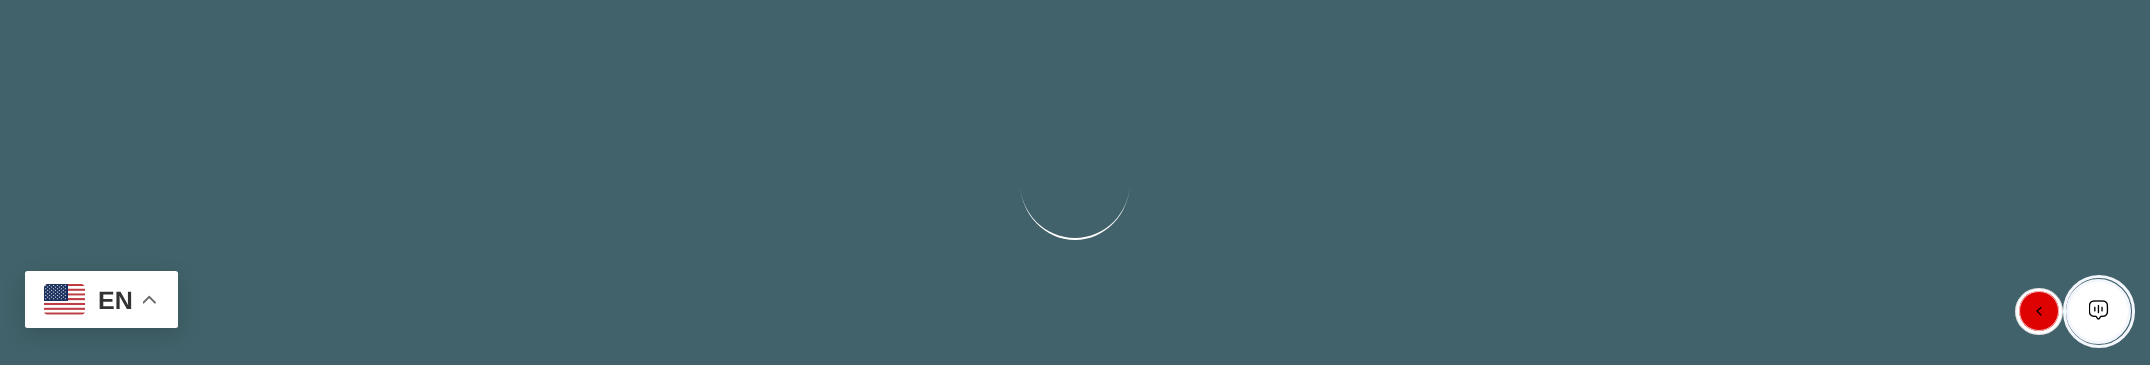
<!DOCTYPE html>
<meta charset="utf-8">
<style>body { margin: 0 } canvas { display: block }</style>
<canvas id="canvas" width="2150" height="365"></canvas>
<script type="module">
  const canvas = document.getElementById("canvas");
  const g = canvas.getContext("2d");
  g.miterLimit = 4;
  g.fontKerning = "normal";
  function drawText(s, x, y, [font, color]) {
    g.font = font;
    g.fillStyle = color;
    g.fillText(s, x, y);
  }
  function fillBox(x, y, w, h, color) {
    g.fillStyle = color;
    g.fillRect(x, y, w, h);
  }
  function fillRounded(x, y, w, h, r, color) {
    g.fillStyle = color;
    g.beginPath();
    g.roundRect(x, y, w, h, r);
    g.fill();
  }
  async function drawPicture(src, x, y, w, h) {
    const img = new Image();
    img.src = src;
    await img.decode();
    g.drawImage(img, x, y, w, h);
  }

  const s1 = ["bold 25px Liberation Sans", "#333333"];

  fillBox(0, 0, 2150, 365, "#41626A");
  g.fillStyle = "#FFFFFF";
  g.beginPath();
  g.moveTo(1020, 182);
  g.bezierCurveTo(1020, 213, 1045, 238, 1075, 238);
  g.bezierCurveTo(1105, 238, 1130, 213, 1130, 182);
  g.bezierCurveTo(1130, 214, 1105, 240, 1075, 240);
  g.bezierCurveTo(1045, 240, 1020, 214, 1020, 182);
  g.fill();
  g.fillStyle = "rgba(0, 0, 0, 0.15)";
  g.filter = "blur(9.5px)";
  g.beginPath();
  g.roundRect(25, 278, 153, 56, 2.5);
  g.fill();
  g.filter = "none";
  fillRounded(25, 271, 153, 57, 2.5, "#FFFFFF");
  await drawPicture("pic1.png", 44, 284, 41, 31);
  drawText("EN", 98, 309, s1);
  await drawPicture("pic2.png", 143, 295, 13, 9);
  fillRounded(2015, 288, 48, 47, 23.5, "#FFFFFF");
  g.beginPath();
  g.roundRect(2015.5, 288.5, 47, 46, 23);
  g.strokeStyle = "rgba(95, 95, 95, 0.2)";
  g.stroke();
  g.fillStyle = "#DE0202";
  g.beginPath();
  g.arc(2039, 311, 20, 0, Math.PI * 2);
  g.fill();
  g.beginPath();
  g.arc(2039, 311, 19.5, 0, Math.PI * 2);
  g.strokeStyle = "rgba(255, 255, 255, 0.7)";
  g.stroke();
  g.beginPath();
  g.moveTo(2041, 315);
  g.lineTo(2037, 311);
  g.lineTo(2041, 307.5);
  g.strokeStyle = "#000000";
  g.lineWidth = 1.2;
  g.lineCap = "round";
  g.lineJoin = "round";
  g.stroke();
  g.beginPath();
  g.roundRect(2064.5, 276.5, 69, 70, 34.5);
  g.strokeStyle = "#F3F6FC";
  g.lineWidth = 3;
  g.lineJoin = "miter";
  g.stroke();
  g.fillStyle = "#FFFFFF";
  g.beginPath();
  g.arc(2098.5, 311.5, 31, 0, Math.PI * 2);
  g.fill();
  g.stroke();
  await drawPicture("pic3.png", 2089, 300, 20, 20);
</script>
